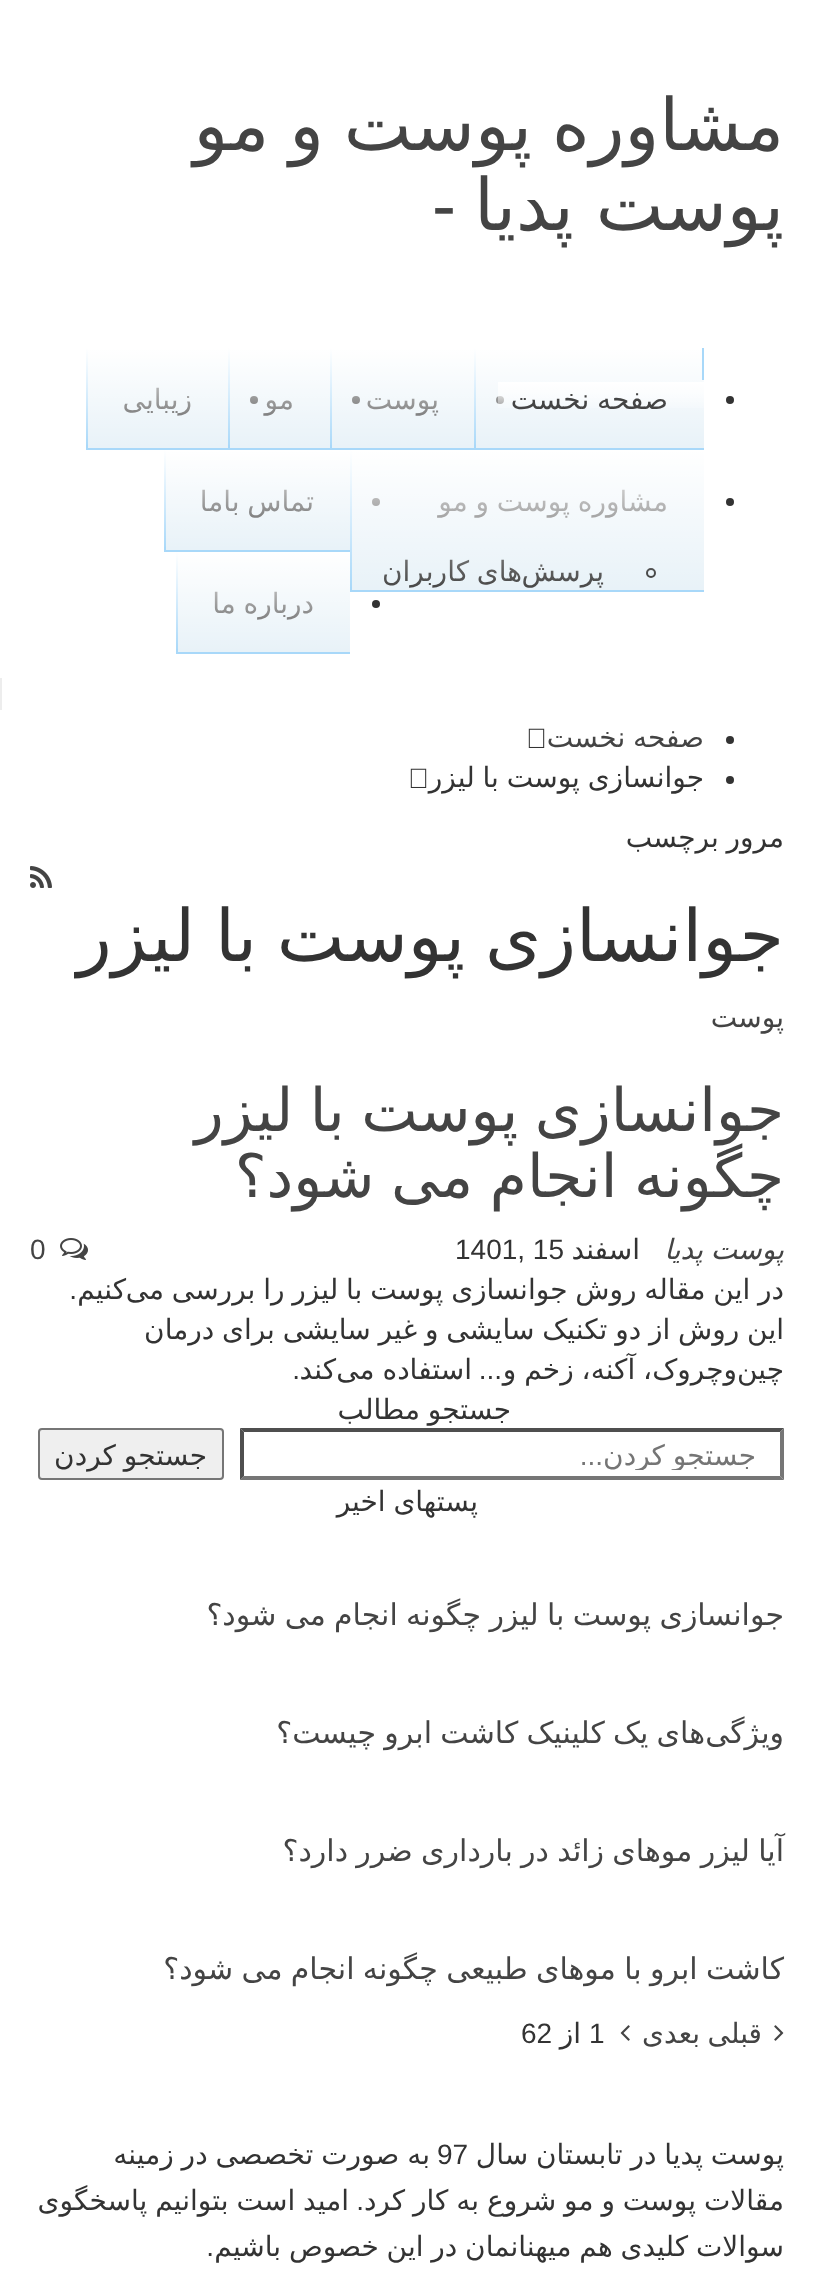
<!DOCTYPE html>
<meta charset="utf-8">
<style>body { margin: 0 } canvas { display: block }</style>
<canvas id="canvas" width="814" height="2289"></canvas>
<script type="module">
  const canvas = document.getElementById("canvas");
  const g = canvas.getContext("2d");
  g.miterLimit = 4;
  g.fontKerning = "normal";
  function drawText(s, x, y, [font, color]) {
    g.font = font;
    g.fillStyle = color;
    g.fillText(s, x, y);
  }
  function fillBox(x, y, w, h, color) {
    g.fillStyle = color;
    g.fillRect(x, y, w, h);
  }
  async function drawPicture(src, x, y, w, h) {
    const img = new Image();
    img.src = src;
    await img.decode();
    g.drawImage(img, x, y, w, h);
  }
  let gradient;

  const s1 = ["72px DejaVu Sans", "#444444"];
  const s2 = ["72px Liberation Sans", "#444444"];
  const s3 = ["28px DejaVu Sans", "#444444"];
  const s4 = ["28px DejaVu Sans", "#333333"];
  const s5 = ["72px DejaVu Sans", "#333333"];
  const s6 = ["60px DejaVu Sans", "#444444"];
  const s7 = ["italic 28px DejaVu Sans", "#444444"];
  const s8 = ["28px Liberation Sans", "#333333"];
  const s9 = ["28px Liberation Sans", "#444444"];
  const s10 = ["28px DejaVu Sans", "#757575"];
  const s11 = ["28px Liberation Sans", "#757575"];
  const s12 = ["30px DejaVu Sans", "#444444"];

  fillBox(0, 0, 814, 2289, "#FFFFFF");
  g.wordSpacing = "-3px";
  g.direction = "rtl";
  drawText("مشاوره پوست و مو", 784, 150, s1);
  g.wordSpacing = "-1px";
  drawText("پوست پدیا", 784, 230, s1);
  g.wordSpacing = "0px";
  drawText("-", 456, 230, s2);
  fillBox(476, 349, 228, 99, "#E8F2F8");
  fillBox(86, 448, 618, 2, "#A8D8F9");
  fillBox(474, 348, 2, 100, "#A8D8F9");
  g.fillStyle = "#333333";
  g.beginPath();
  g.arc(500, 400, 4, 0, Math.PI * 2);
  g.fill();
  gradient = g.createLinearGradient(589, 348, 589, 448);
  gradient.addColorStop(0, "#FFFFFF");
  gradient.addColorStop(1, "rgba(255, 255, 255, 0)");
  g.fillStyle = gradient;
  g.fillRect(474, 348, 230, 97);
  g.fillStyle = "#333333";
  g.beginPath();
  g.arc(730, 400, 4, 0, Math.PI * 2);
  g.fill();
  fillBox(702, 348, 2, 32, "#A8D8F9");
  gradient = g.createLinearGradient(601, 382, 601, 414);
  gradient.addColorStop(0, "#FFFFFF");
  gradient.addColorStop(1, "rgba(255, 255, 255, 0)");
  g.fillStyle = gradient;
  g.fillRect(498, 382, 206, 26);
  g.wordSpacing = "-1.1px";
  drawText("صفحه نخست", 668, 409, s3);
  fillBox(332, 349, 142, 99, "#E8F2F8");
  fillBox(330, 348, 2, 100, "#A8D8F9");
  g.wordSpacing = "0px";
  drawText("پوست", 439, 409, s3);
  g.fillStyle = "#333333";
  g.beginPath();
  g.arc(356, 400, 4, 0, Math.PI * 2);
  g.fill();
  gradient = g.createLinearGradient(402, 348, 402, 448);
  gradient.addColorStop(0, "#FFFFFF");
  gradient.addColorStop(1, "rgba(255, 255, 255, 0)");
  g.fillStyle = gradient;
  g.fillRect(330, 348, 144, 97);
  fillBox(230, 349, 100, 99, "#E8F2F8");
  fillBox(228, 348, 2, 100, "#A8D8F9");
  drawText("مو", 294, 409, s3);
  g.fillStyle = "#333333";
  g.beginPath();
  g.arc(254, 400, 4, 0, Math.PI * 2);
  g.fill();
  gradient = g.createLinearGradient(279, 348, 279, 448);
  gradient.addColorStop(0, "#FFFFFF");
  gradient.addColorStop(1, "rgba(255, 255, 255, 0)");
  g.fillStyle = gradient;
  g.fillRect(228, 348, 102, 97);
  fillBox(88, 349, 140, 99, "#E8F2F8");
  fillBox(86, 348, 2, 100, "#A8D8F9");
  drawText("زیبایی", 192, 409, s3);
  gradient = g.createLinearGradient(157, 348, 157, 448);
  gradient.addColorStop(0, "#FFFFFF");
  gradient.addColorStop(1, "rgba(255, 255, 255, 0)");
  g.fillStyle = gradient;
  g.fillRect(86, 348, 142, 97);
  fillBox(352, 451, 352, 139, "#E8F2F8");
  fillBox(350, 590, 354, 2, "#A8D8F9");
  fillBox(350, 450, 2, 140, "#A8D8F9");
  g.wordSpacing = "-1.1px";
  drawText("مشاوره پوست و مو", 668, 511, s3);
  g.beginPath();
  g.arc(651, 573, 4, 0, Math.PI * 2);
  g.strokeStyle = "#333333";
  g.lineWidth = 2;
  g.stroke();
  g.wordSpacing = "0px";
  drawText("پرسش", 604, 581, s3);
  g.wordSpacing = "-1.1px";
  drawText("های کاربران", 522, 581, s3);
  g.fillStyle = "#333333";
  g.beginPath();
  g.arc(376, 502, 4, 0, Math.PI * 2);
  g.fill();
  gradient = g.createLinearGradient(527, 450, 527, 590);
  gradient.addColorStop(0, "#FFFFFF");
  gradient.addColorStop(1, "rgba(255, 255, 255, 0)");
  g.fillStyle = gradient;
  g.fillRect(350, 450, 354, 137);
  g.fillStyle = "#333333";
  g.beginPath();
  g.arc(730, 502, 4, 0, Math.PI * 2);
  g.fill();
  fillBox(166, 451, 184, 99, "#E8F2F8");
  fillBox(164, 550, 186, 2, "#A8D8F9");
  fillBox(164, 450, 2, 100, "#A8D8F9");
  drawText("تماس باما", 314, 511, s3);
  gradient = g.createLinearGradient(257, 450, 257, 550);
  gradient.addColorStop(0, "#FFFFFF");
  gradient.addColorStop(1, "rgba(255, 255, 255, 0)");
  g.fillStyle = gradient;
  g.fillRect(164, 450, 186, 97);
  fillBox(178, 553, 172, 99, "#E8F2F8");
  fillBox(176, 652, 174, 2, "#A8D8F9");
  fillBox(176, 552, 2, 100, "#A8D8F9");
  drawText("درباره ما", 314, 613, s3);
  gradient = g.createLinearGradient(263, 552, 263, 652);
  gradient.addColorStop(0, "#FFFFFF");
  gradient.addColorStop(1, "rgba(255, 255, 255, 0)");
  g.fillStyle = gradient;
  g.fillRect(176, 552, 174, 97);
  g.fillStyle = "#333333";
  g.beginPath();
  g.arc(376, 604, 4, 0, Math.PI * 2);
  g.fill();
  fillBox(0, 678, 2, 32, "#EDEDED");
  g.fillStyle = "#333333";
  g.beginPath();
  g.arc(730, 740, 4, 0, Math.PI * 2);
  g.fill();
  drawText("صفحه نخست", 704, 747, s3);
  await drawPicture("pic1.png", 528, 728, 17, 20);
  g.fillStyle = "#333333";
  g.beginPath();
  g.arc(730, 780, 4, 0, Math.PI * 2);
  g.fill();
  drawText("جوانسازی پوست با لیزر", 704, 787, s4);
  await drawPicture("pic1.png", 410, 768, 17, 20);
  drawText("مرور برچسب", 784, 847, s4);
  await drawPicture("pic2.png", 30, 866, 22, 22);
  g.wordSpacing = "-3px";
  drawText("جوانسازی پوست با لیزر", 784, 961, s5);
  g.wordSpacing = "0px";
  drawText("پوست", 784, 1027, s3);
  g.wordSpacing = "-2.5px";
  drawText("جوانسازی پوست با لیزر", 784, 1131, s6);
  drawText("چگونه انجام می شود؟", 784, 1197, s6);
  g.wordSpacing = "-1.1px";
  drawText("پوست پدیا", 784, 1259, s7);
  g.wordSpacing = "0px";
  drawText("اسفند", 640, 1259, s4);
  g.direction = "ltr";
  drawText("1401, 15", 455, 1259, s8);
  await drawPicture("pic3.png", 60, 1238, 28, 22);
  drawText("0", 30, 1259, s9);
  g.wordSpacing = "-1.1px";
  g.direction = "rtl";
  drawText("در این مقاله روش جوانسازی پوست با لیزر را بررسی می", 784, 1299, s4);
  g.wordSpacing = "0px";
  drawText("کنیم", 126, 1299, s4);
  drawText(".", 77, 1299, s8);
  g.wordSpacing = "-1.1px";
  drawText("این روش از دو تکنیک سایشی و غیر سایشی برای درمان", 784, 1339, s4);
  g.wordSpacing = "0px";
  drawText("چین", 784, 1379, s4);
  g.wordSpacing = "-1px";
  drawText("وچروک، آکنه، زخم و", 737, 1379, s4);
  g.wordSpacing = "0px";
  drawText("...", 502, 1379, s8);
  g.wordSpacing = "-1px";
  drawText("استفاده می", 472, 1379, s4);
  g.wordSpacing = "0px";
  drawText("کند", 336, 1379, s4);
  drawText(".", 300, 1379, s8);
  g.wordSpacing = "-1.1px";
  drawText("جستجو مطالب", 511, 1419, s4);
  g.fillStyle = "#4F4F4F";
  g.beginPath();
  g.moveTo(240, 1428);
  g.lineTo(784, 1428);
  g.lineTo(780, 1432);
  g.lineTo(244, 1432);
  g.closePath();
  g.fill();
  g.fillStyle = "#767676";
  g.beginPath();
  g.moveTo(784, 1428);
  g.lineTo(784, 1480);
  g.lineTo(780, 1476);
  g.lineTo(780, 1432);
  g.closePath();
  g.fill();
  g.beginPath();
  g.moveTo(784, 1480);
  g.lineTo(240, 1480);
  g.lineTo(244, 1476);
  g.lineTo(780, 1476);
  g.closePath();
  g.fill();
  g.fillStyle = "#4F4F4F";
  g.beginPath();
  g.moveTo(240, 1480);
  g.lineTo(240, 1428);
  g.lineTo(244, 1432);
  g.lineTo(244, 1476);
  g.closePath();
  g.fill();
  g.save();
  g.beginPath();
  g.rect(402, 1438, 354, 32);
  g.clip();
  drawText("جستجو کردن", 756, 1465, s10);
  g.restore();
  g.wordSpacing = "0px";
  drawText("...", 603, 1465, s11);
  g.fillStyle = "#EFEFEF";
  g.beginPath();
  g.roundRect(39, 1429, 184, 50, 3);
  g.fill();
  g.strokeStyle = "#767676";
  g.stroke();
  g.wordSpacing = "-1.1px";
  drawText("جستجو کردن", 207, 1465, s4);
  drawText("پستهای اخیر", 478, 1511, s4);
  g.wordSpacing = "-1.25px";
  drawText("جوانسازی پوست با لیزر چگونه انجام می شود؟", 784, 1625, s12);
  drawText("های یک کلینیک کاشت ابرو چیست؟", 705, 1743, s12);
  g.wordSpacing = "0px";
  drawText("ویژگی", 784, 1743, s12);
  g.wordSpacing = "-1.25px";
  drawText("آیا لیزر موهای زائد در بارداری ضرر دارد؟", 784, 1861, s12);
  drawText("کاشت ابرو با موهای طبیعی چگونه انجام می شود؟", 784, 1979, s12);
  await drawPicture("pic4.png", 774, 2025, 10, 16);
  g.wordSpacing = "0px";
  drawText("قبلی", 762, 2043, s3);
  drawText("بعدی", 700, 2043, s3);
  await drawPicture("pic5.png", 620, 2025, 10, 16);
  g.direction = "ltr";
  drawText("1", 589, 2043, s8);
  g.direction = "rtl";
  drawText("از", 581, 2043, s4);
  g.direction = "ltr";
  drawText("62", 521, 2043, s8);
  g.wordSpacing = "-1.1px";
  g.direction = "rtl";
  drawText("پوست پدیا در تابستان سال", 784, 2164, s4);
  g.wordSpacing = "0px";
  g.direction = "ltr";
  drawText("97", 437, 2164, s8);
  g.wordSpacing = "-1px";
  g.direction = "rtl";
  drawText("به صورت تخصصی در زمینه", 430, 2164, s4);
  drawText("مقالات پوست و مو شروع به کار کرد", 784, 2210, s4);
  g.wordSpacing = "0px";
  drawText(".", 364, 2210, s8);
  g.wordSpacing = "-1px";
  drawText("امید است بتوانیم پاسخگوی", 349, 2210, s4);
  g.wordSpacing = "-1.1px";
  drawText("سوالات کلیدی هم میهنانمان در این خصوص باشیم", 784, 2256, s4);
  g.wordSpacing = "0px";
  drawText(".", 214, 2256, s8);
</script>
